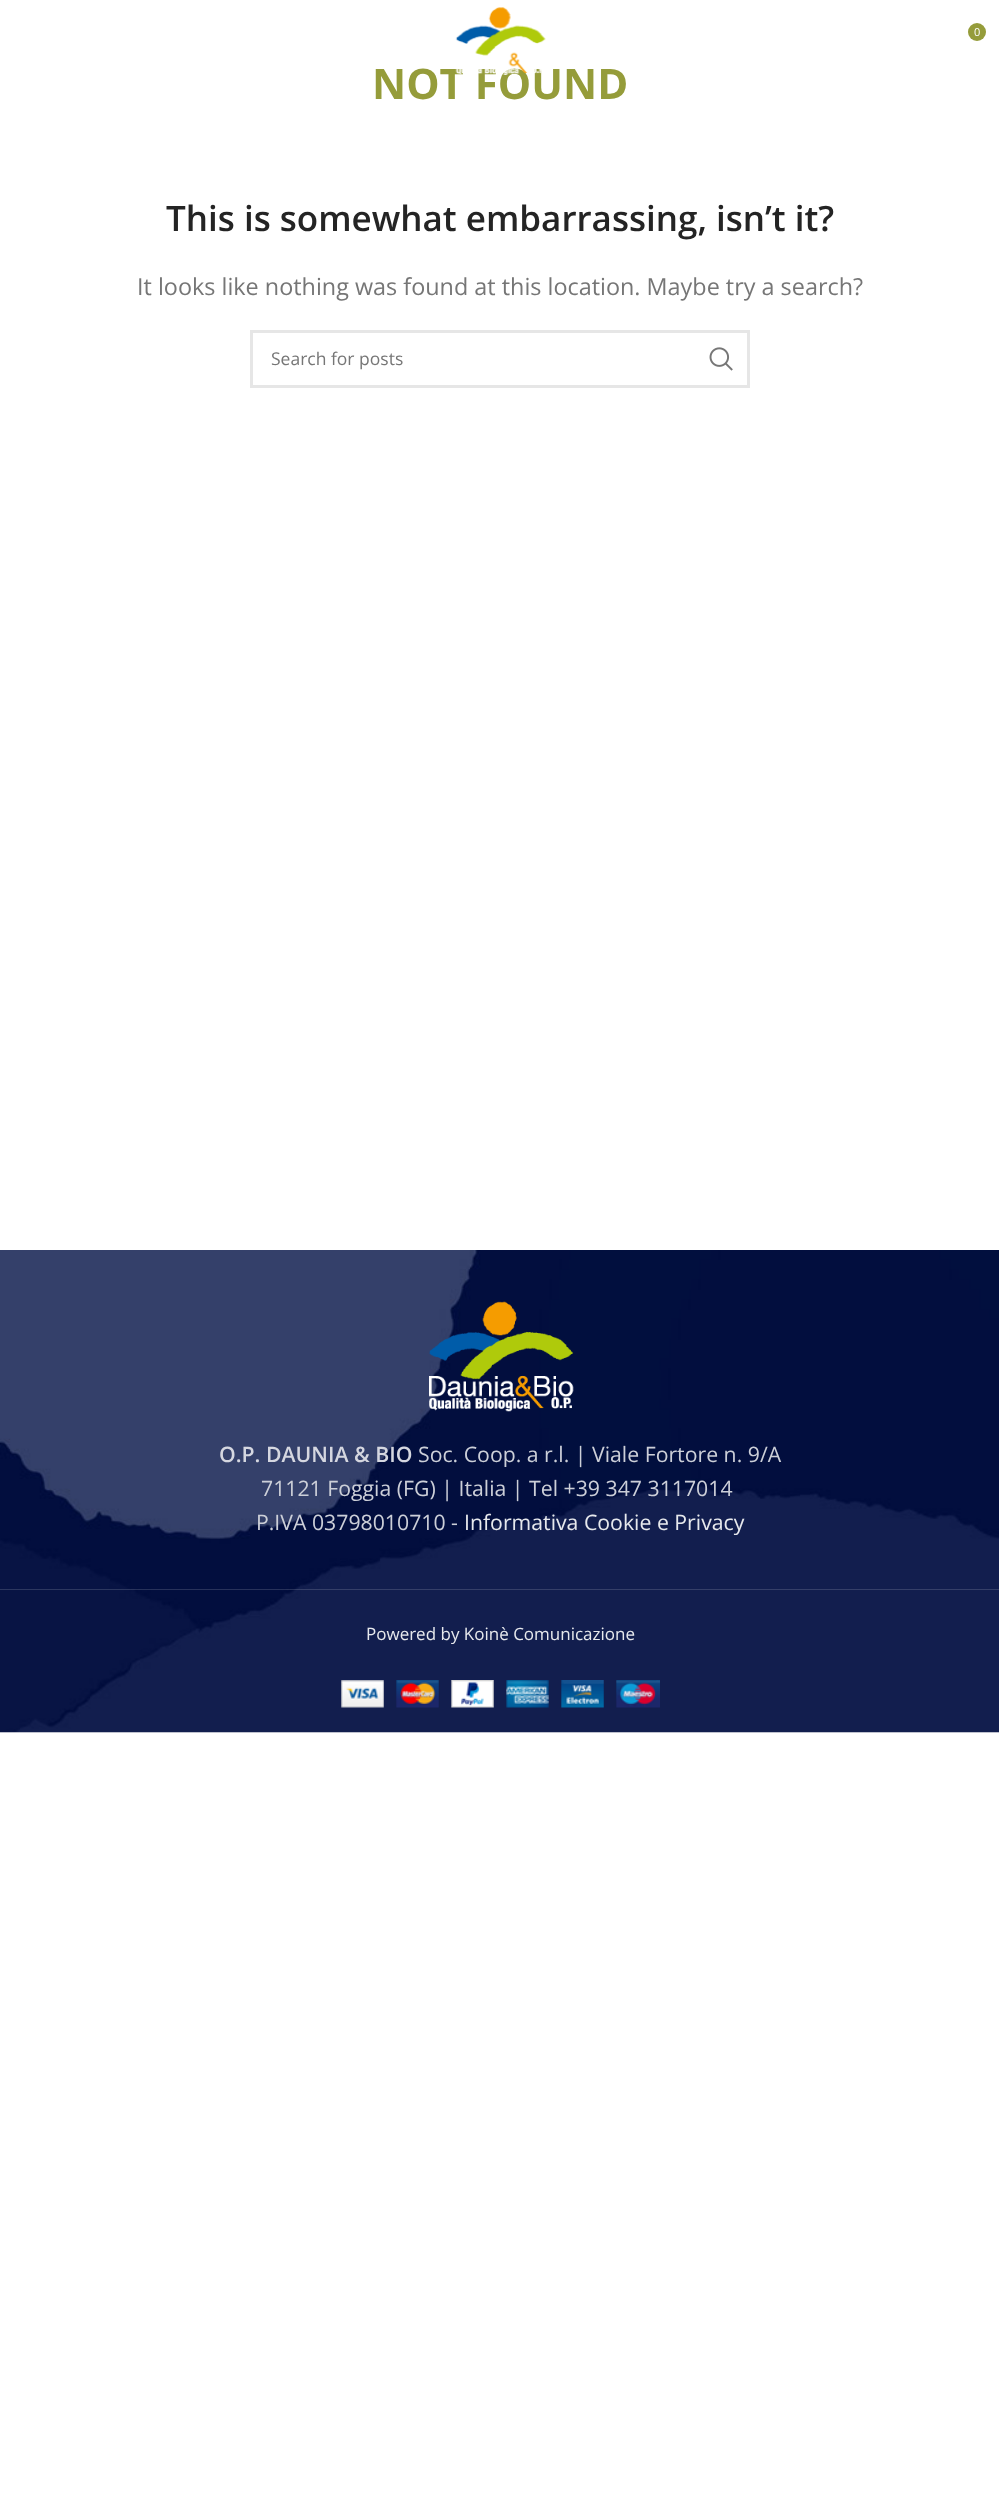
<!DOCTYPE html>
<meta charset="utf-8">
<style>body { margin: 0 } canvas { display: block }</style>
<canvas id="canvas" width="999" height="2498"></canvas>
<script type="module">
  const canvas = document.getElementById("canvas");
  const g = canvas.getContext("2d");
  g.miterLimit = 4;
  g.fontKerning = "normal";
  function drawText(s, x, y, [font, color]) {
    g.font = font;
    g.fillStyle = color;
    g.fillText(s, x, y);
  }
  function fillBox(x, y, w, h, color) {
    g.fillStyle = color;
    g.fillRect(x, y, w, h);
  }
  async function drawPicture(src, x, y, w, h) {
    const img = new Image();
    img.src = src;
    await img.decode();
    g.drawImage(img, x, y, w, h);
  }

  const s1 = ["bold 42px Open Sans", "#959C3A"];
  const s2 = ["11px Open Sans", "#FFFFFF"];
  const s3 = ["600 35px Open Sans", "#242424"];
  const s4 = ["23.4px Open Sans", "#767676"];
  const s5 = ["17.5px Open Sans", "#767676"];
  const s6 = ["600 21.25px Open Sans", "#D5D7E0"];
  const s7 = ["21.25px Open Sans", "#CCCFD8"];
  const s8 = ["21.25px Open Sans", "#E7E9ED"];
  const s9 = ["17px Open Sans", "#E7E9ED"];

  fillBox(0, 0, 999, 2498, "#FFFFFF");
  drawText("NOT FOUND", 372, 99, s1);
  await drawPicture("pic1.png", 455, 7, 91, 68);
  g.beginPath();
  g.arc(977, 32, 9, 0, Math.PI * 2);
  g.fill();
  drawText("0", 974, 36, s2);
  drawText("This is somewhat embarrassing, isn’t it?", 166, 231, s3);
  drawText("It looks like nothing was found at this location. Maybe try a search?", 137, 295, s4);
  g.strokeStyle = "#E6E6E6";
  g.lineWidth = 3;
  g.strokeRect(251.5, 331.5, 497, 55);
  drawText("Search for posts", 271, 365, s5);
  await drawPicture("pic2.png", 709, 347, 24, 24);
  fillBox(0, 1732, 999, 1, "#F9F9F9");
  await drawPicture("pic3.png", 0, 1250, 999, 483);
  await drawPicture("pic4.png", 429, 1301, 145, 111);
  drawText("O.P. DAUNIA & BIO", 219, 1462, s6);
  drawText("Soc. Coop. a r.l. | Viale Fortore n. 9/A", 418, 1462, s7);
  drawText("71121 Foggia (FG) | Italia | Tel +39 347 3117014", 261, 1496, s7);
  drawText("P.IVA 03798010710 -", 256, 1530, s7);
  drawText("Informativa Cookie e Privacy", 464, 1530, s8);
  fillBox(0, 1589, 999, 1, "rgba(255, 255, 255, 0.15)");
  drawText("Powered by Koinè Comunicazione", 366, 1640, s9);
  await drawPicture("pic5.png", 341, 1680, 319, 28);
</script>
